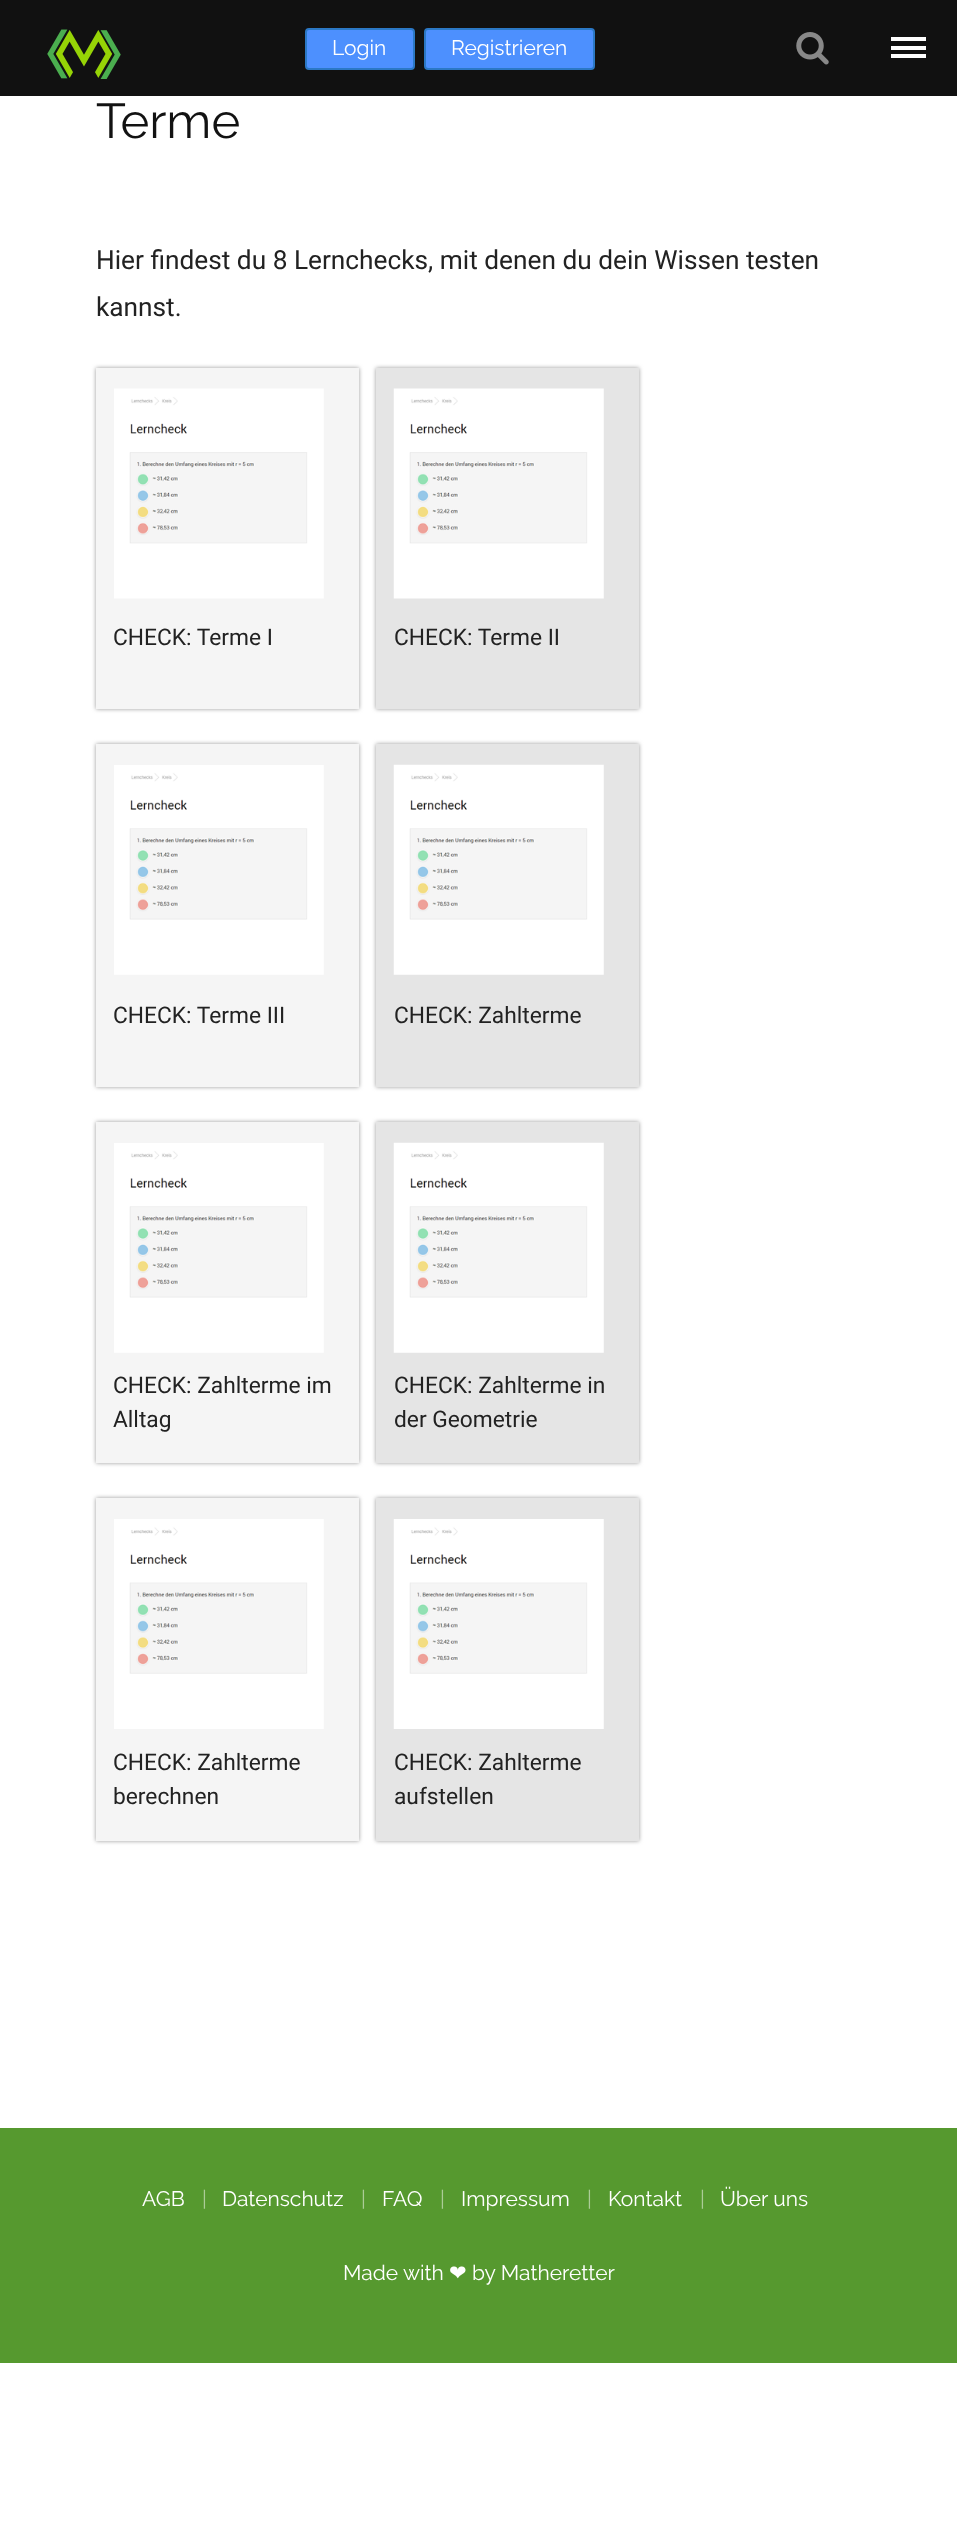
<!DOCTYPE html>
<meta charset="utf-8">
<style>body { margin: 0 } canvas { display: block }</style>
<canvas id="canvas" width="957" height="2539"></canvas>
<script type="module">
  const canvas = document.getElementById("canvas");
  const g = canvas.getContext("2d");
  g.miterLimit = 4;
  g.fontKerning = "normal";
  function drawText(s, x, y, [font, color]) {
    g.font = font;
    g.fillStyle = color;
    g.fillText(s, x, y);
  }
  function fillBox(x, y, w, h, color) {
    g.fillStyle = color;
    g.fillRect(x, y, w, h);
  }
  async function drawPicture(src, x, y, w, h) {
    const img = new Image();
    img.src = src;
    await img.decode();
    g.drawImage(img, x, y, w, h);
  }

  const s1 = ["100 21px Raleway", "#FFFFFF"];
  const s2 = ["100 49px Raleway", "#121212"];
  const s3 = ["26.25px Roboto", "#222222"];
  const s4 = ["22.75px Roboto", "#222222"];
  const s5 = ["100 21px Raleway", "#ABCC97"];
  const s6 = ["21px DejaVu Sans", "#FFFFFF"];

  fillBox(0, 0, 957, 2539, "#FFFFFF");
  fillBox(0, 0, 957, 96, "#111111");
  await drawPicture("pic1.png", 47, 29, 74, 50);
  g.fillStyle = "#4D90FE";
  g.beginPath();
  g.roundRect(306, 29, 108, 40, 3);
  g.fill();
  g.strokeStyle = "#2B78C5";
  g.lineWidth = 2;
  g.stroke();
  drawText("Login", 332, 55, s1);
  g.fillStyle = "#4D90FE";
  g.beginPath();
  g.roundRect(425, 29, 169, 40, 3);
  g.fill();
  g.stroke();
  drawText("Registrieren", 451, 55, s1);
  await drawPicture("pic2.png", 796, 32, 33, 33);
  fillBox(891, 46, 35, 4, "#FFFFFF");
  fillBox(891, 37, 35, 4, "#FFFFFF");
  fillBox(891, 54, 35, 4, "#FFFFFF");
  drawText("Terme", 96, 138, s2);
  drawText("Hier findest du 8 Lernchecks, mit denen du dein Wissen testen", 96, 269, s3);
  drawText("kannst.", 96, 316, s3);
  g.fillStyle = "#999999";
  g.filter = "blur(2px)";
  g.beginPath();
  g.rect(96, 368, 263, 341);
  g.fill();
  g.filter = "none";
  fillBox(96, 368, 263, 341, "#F5F5F5");
  await drawPicture("pic3.png", 114, 388, 210, 211);
  drawText("CHECK: Terme I", 113, 645, s4);
  g.fillStyle = "#999999";
  g.filter = "blur(2px)";
  g.beginPath();
  g.rect(376, 368, 263, 341);
  g.fill();
  g.filter = "none";
  fillBox(376, 368, 263, 341, "#E5E5E5");
  await drawPicture("pic4.png", 393, 388, 211, 211);
  drawText("CHECK: Terme II", 394, 645, s4);
  g.fillStyle = "#999999";
  g.filter = "blur(2px)";
  g.beginPath();
  g.rect(96, 744, 263, 343);
  g.fill();
  g.filter = "none";
  fillBox(96, 744, 263, 343, "#F5F5F5");
  await drawPicture("pic5.png", 114, 765, 210, 210);
  drawText("CHECK: Terme III", 113, 1023, s4);
  g.fillStyle = "#999999";
  g.filter = "blur(2px)";
  g.beginPath();
  g.rect(376, 744, 263, 343);
  g.fill();
  g.filter = "none";
  fillBox(376, 744, 263, 343, "#E5E5E5");
  await drawPicture("pic6.png", 393, 764, 211, 211);
  drawText("CHECK: Zahlterme", 394, 1023, s4);
  g.fillStyle = "#999999";
  g.filter = "blur(2px)";
  g.beginPath();
  g.rect(96, 1122, 263, 341);
  g.fill();
  g.filter = "none";
  fillBox(96, 1122, 263, 341, "#F5F5F5");
  await drawPicture("pic5.png", 114, 1143, 210, 210);
  drawText("CHECK: Zahlterme im", 113, 1393, s4);
  drawText("Alltag", 113, 1427, s4);
  g.fillStyle = "#999999";
  g.filter = "blur(2px)";
  g.beginPath();
  g.rect(376, 1122, 263, 341);
  g.fill();
  g.filter = "none";
  fillBox(376, 1122, 263, 341, "#E5E5E5");
  await drawPicture("pic6.png", 393, 1142, 211, 211);
  drawText("CHECK: Zahlterme in", 394, 1393, s4);
  drawText("der Geometrie", 394, 1427, s4);
  g.fillStyle = "#999999";
  g.filter = "blur(2px)";
  g.beginPath();
  g.rect(96, 1498, 263, 343);
  g.fill();
  g.filter = "none";
  fillBox(96, 1498, 263, 343, "#F5F5F5");
  await drawPicture("pic7.png", 114, 1519, 210, 210);
  drawText("CHECK: Zahlterme", 113, 1770, s4);
  drawText("berechnen", 113, 1804, s4);
  g.fillStyle = "#999999";
  g.filter = "blur(2px)";
  g.beginPath();
  g.rect(376, 1498, 263, 343);
  g.fill();
  g.filter = "none";
  fillBox(376, 1498, 263, 343, "#E5E5E5");
  await drawPicture("pic8.png", 393, 1519, 211, 210);
  drawText("CHECK: Zahlterme", 394, 1770, s4);
  drawText("aufstellen", 394, 1804, s4);
  fillBox(0, 2128, 957, 235, "#56992F");
  drawText("AGB", 142, 2206, s1);
  drawText("|", 202, 2206, s5);
  drawText("Datenschutz", 222, 2206, s1);
  drawText("|", 361, 2206, s5);
  drawText("FAQ", 382, 2206, s1);
  drawText("|", 440, 2206, s5);
  drawText("Impressum", 461, 2206, s1);
  drawText("|", 587, 2206, s5);
  drawText("Kontakt", 608, 2206, s1);
  drawText("|", 700, 2206, s5);
  drawText("Über uns", 720, 2206, s1);
  drawText("Made with", 343, 2280, s1);
  drawText("❤", 449, 2280, s6);
  drawText("by Matheretter", 472, 2280, s1);
</script>
